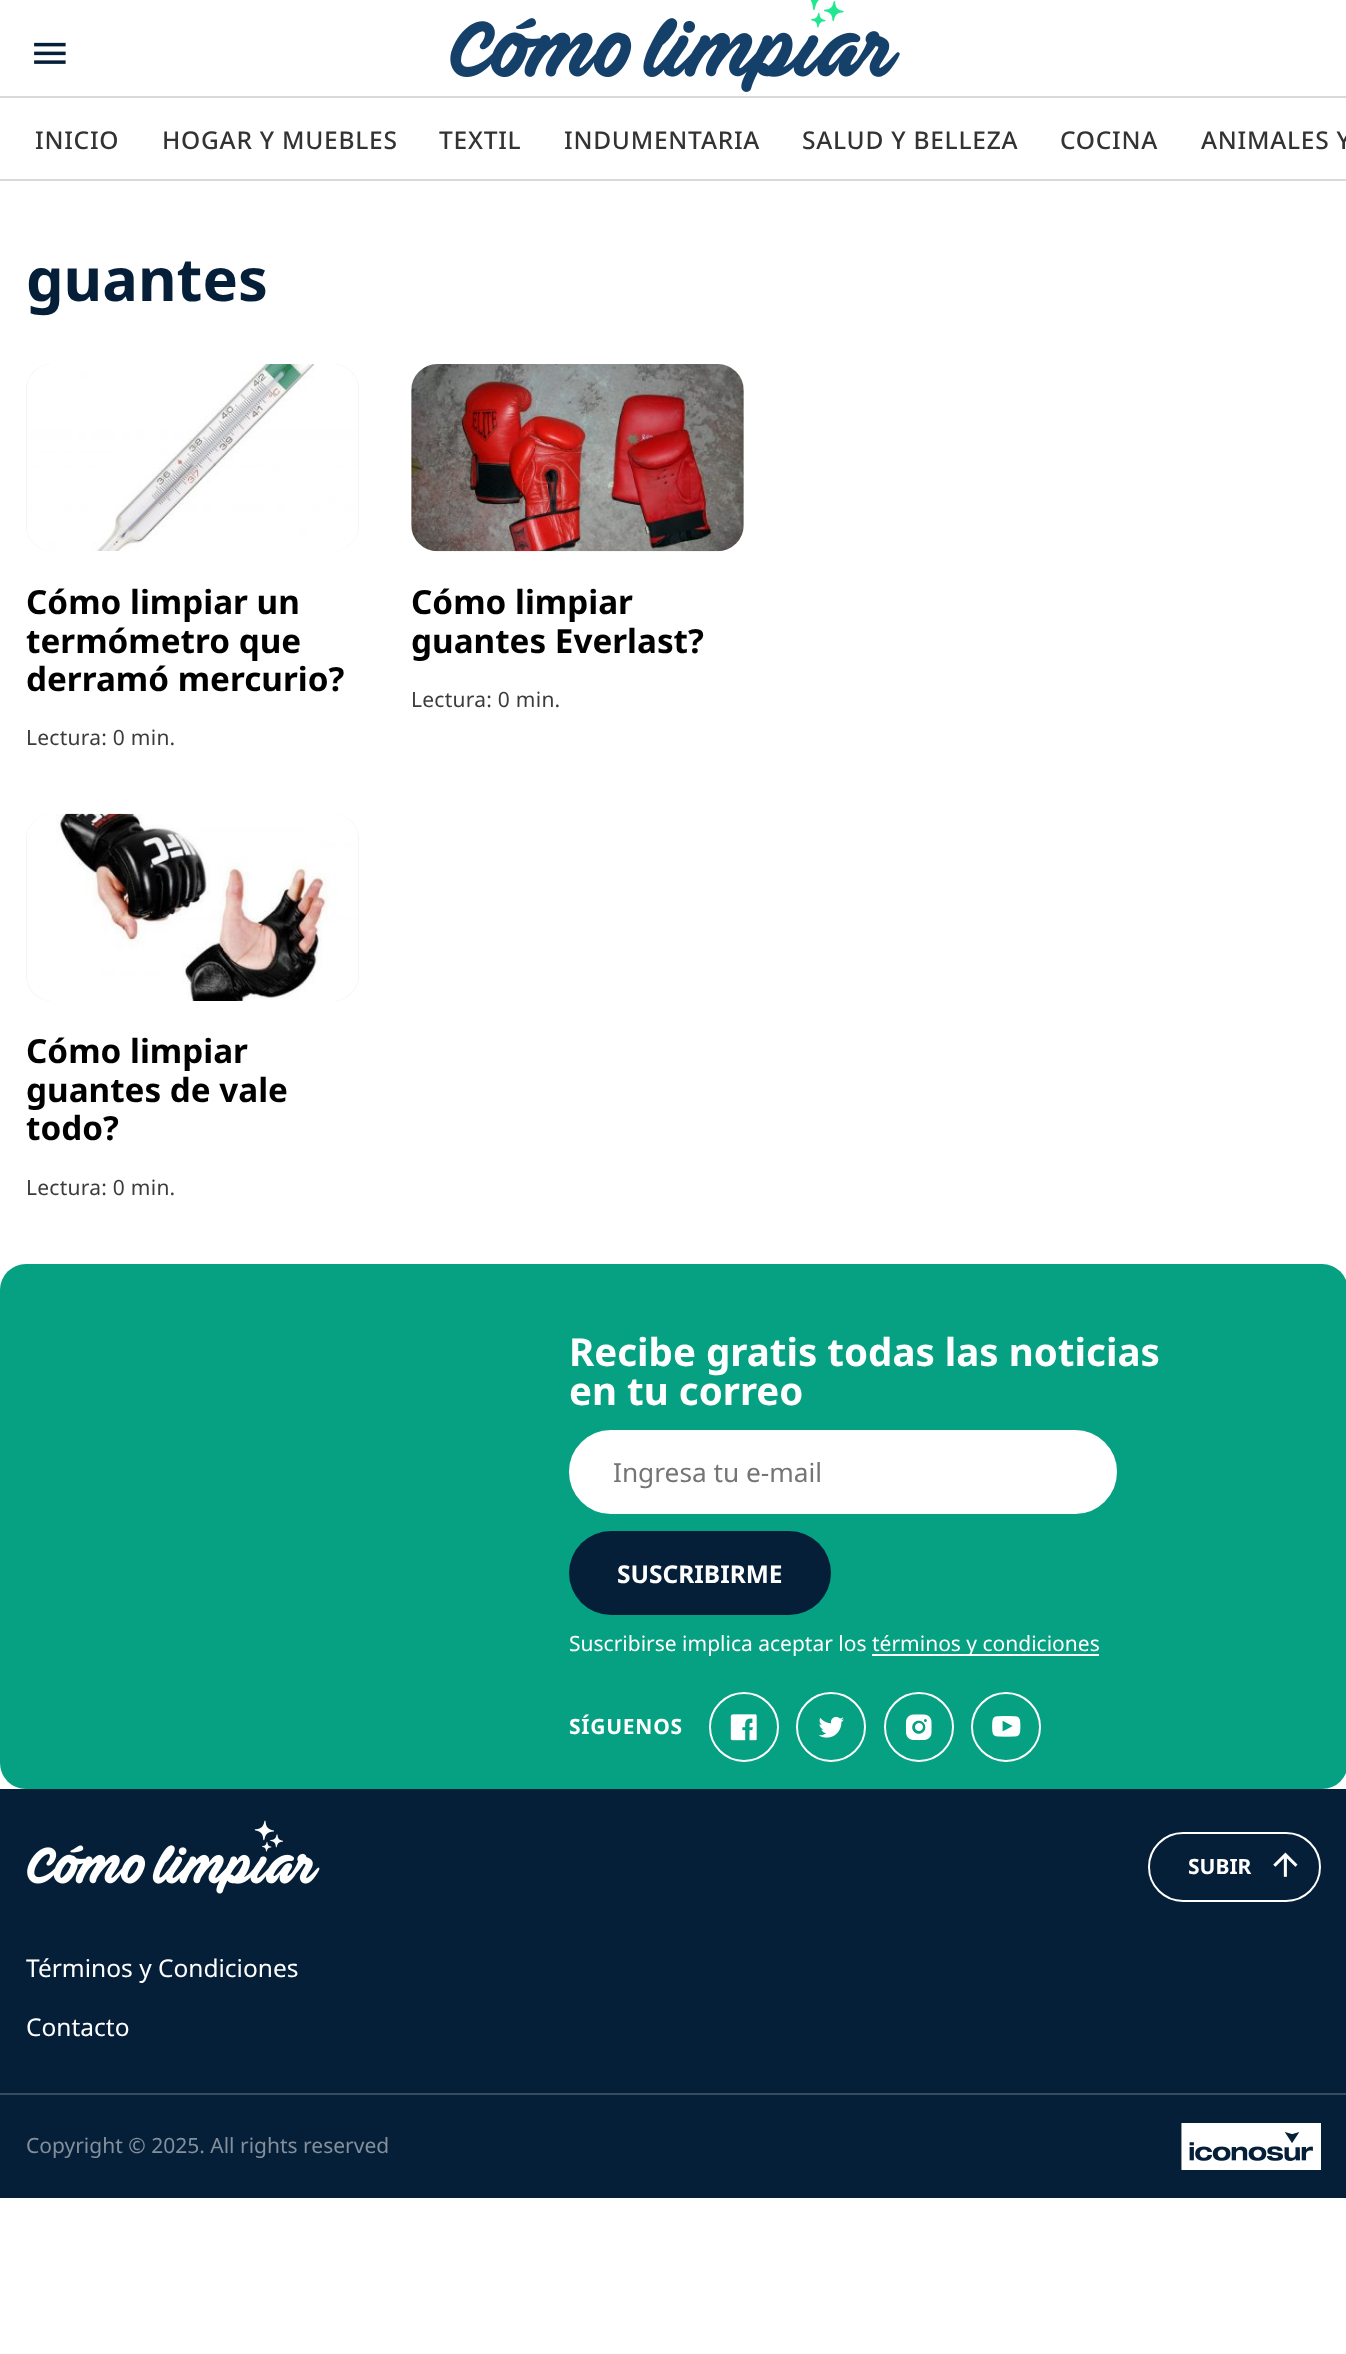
<!DOCTYPE html>
<meta charset="utf-8">
<style>body { margin: 0 } canvas { display: block }</style>
<canvas id="canvas" width="1346" height="2354"></canvas>
<script type="module">
  const canvas = document.getElementById("canvas");
  const g = canvas.getContext("2d");
  g.miterLimit = 4;
  g.fontKerning = "normal";
  function drawText(s, x, y, [font, color]) {
    g.font = font;
    g.fillStyle = color;
    g.fillText(s, x, y);
  }
  function fillBox(x, y, w, h, color) {
    g.fillStyle = color;
    g.fillRect(x, y, w, h);
  }
  function fillRounded(x, y, w, h, r, color) {
    g.fillStyle = color;
    g.beginPath();
    g.roundRect(x, y, w, h, r);
    g.fill();
  }
  async function drawPicture(src, x, y, w, h) {
    const img = new Image();
    img.src = src;
    await img.decode();
    g.drawImage(img, x, y, w, h);
  }

  const s1 = ["500 24.5px Noto Sans", "#333333"];
  const s2 = ["bold 59.5px Noto Sans", "#061F38"];
  const s3 = ["bold 33.25px Noto Sans", "#000000"];
  const s4 = ["21px Noto Sans", "#3C3C3C"];
  const s5 = ["bold 38.5px Noto Sans", "#FFFFFF"];
  const s6 = ["26.25px Noto Sans", "#757575"];
  const s7 = ["bold 24.5px Noto Sans", "#FFFFFF"];
  const s8 = ["21px Noto Sans", "#FFFFFF"];
  const s9 = ["bold 21px Noto Sans", "#FFFFFF"];
  const s10 = ["24.5px Noto Sans", "#FFFFFF"];
  const s11 = ["21px Noto Sans", "#838F9C"];

  fillBox(0, 0, 1346, 2354, "#FFFFFF");
  fillBox(0, 179, 1346, 2, "#D9D9D9");
  fillBox(0, 96, 1346, 2, "#D9D9D9");
  await drawPicture("pic1.png", 34, 42, 32, 22);
  await drawPicture("pic2.png", 450, 0, 450, 92);
  g.letterSpacing = "0.75px";
  drawText("INICIO", 35, 149, s1);
  drawText("HOGAR Y MUEBLES", 162, 149, s1);
  drawText("TEXTIL", 439, 149, s1);
  drawText("INDUMENTARIA", 564, 149, s1);
  drawText("SALUD Y BELLEZA", 802, 149, s1);
  drawText("COCINA", 1060, 149, s1);
  drawText("ANIMALES Y", 1201, 149, s1);
  g.letterSpacing = "0px";
  drawText("guantes", 26, 301, s2);
  fillRounded(26, 364, 333, 187, 26, "#EAEAEA");
  await drawPicture("pic3.png", 26, 364, 333, 187);
  drawText("Cómo limpiar un", 26, 614, s3);
  drawText("termómetro que", 26, 653, s3);
  drawText("derramó mercurio?", 26, 691, s3);
  g.letterSpacing = "0.25px";
  drawText("Lectura: 0 min.", 26, 745, s4);
  fillRounded(411, 364, 333, 187, 26, "#EAEAEA");
  await drawPicture("pic4.png", 411, 364, 333, 188);
  g.letterSpacing = "0px";
  drawText("Cómo limpiar", 411, 614, s3);
  drawText("guantes Everlast?", 411, 653, s3);
  g.letterSpacing = "0.25px";
  drawText("Lectura: 0 min.", 411, 707, s4);
  fillRounded(26, 814, 333, 187, 26, "#EAEAEA");
  await drawPicture("pic5.png", 26, 813, 333, 188);
  g.letterSpacing = "0px";
  drawText("Cómo limpiar", 26, 1063, s3);
  drawText("guantes de vale", 26, 1102, s3);
  drawText("todo?", 26, 1140, s3);
  g.letterSpacing = "0.25px";
  drawText("Lectura: 0 min.", 26, 1195, s4);
  fillRounded(0, 1264, 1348, 525, 26, "#06A082");
  g.letterSpacing = "0px";
  drawText("Recibe gratis todas las noticias", 569, 1366, s5);
  drawText("en tu correo", 569, 1405, s5);
  g.beginPath();
  g.roundRect(570, 1431, 546, 82, 41);
  g.fill();
  g.strokeStyle = "#FFFFFF";
  g.lineWidth = 2;
  g.stroke();
  drawText("Ingresa tu e-mail", 613, 1482, s6);
  fillRounded(569, 1531, 262, 84, 42, "#061F38");
  drawText("SUSCRIBIRME", 617, 1583, s7);
  drawText("Suscribirse implica aceptar los", 569, 1651, s8);
  fillBox(872, 1654, 227, 2, "#FFFFFF");
  drawText("términos y condiciones", 872, 1651, s8);
  g.letterSpacing = "0.75px";
  drawText("SÍGUENOS", 569, 1734, s9);
  g.beginPath();
  g.arc(744, 1727, 34, 0, Math.PI * 2);
  g.stroke();
  await drawPicture("pic6.png", 730, 1714, 27, 27);
  g.beginPath();
  g.arc(831, 1727, 34, 0, Math.PI * 2);
  g.stroke();
  await drawPicture("pic7.png", 818, 1716, 26, 22);
  g.beginPath();
  g.arc(919, 1727, 34, 0, Math.PI * 2);
  g.stroke();
  await drawPicture("pic8.png", 905, 1714, 27, 27);
  g.beginPath();
  g.arc(1006, 1727, 34, 0, Math.PI * 2);
  g.stroke();
  await drawPicture("pic9.png", 992, 1716, 29, 21);
  fillBox(0, 1789, 1346, 409, "#061F38");
  await drawPicture("pic10.png", 27, 1820, 293, 74);
  g.beginPath();
  g.roundRect(1149, 1833, 171, 68, 34);
  g.stroke();
  g.letterSpacing = "0px";
  drawText("SUBIR", 1188, 1874, s9);
  await drawPicture("pic11.png", 1273, 1852, 25, 25);
  fillBox(0, 2093, 1346, 2, "#384C60");
  drawText("Términos y Condiciones", 26, 1977, s10);
  drawText("Contacto", 26, 2036, s10);
  drawText("Copyright © 2025. All rights reserved", 26, 2153, s11);
  await drawPicture("pic12.png", 1181, 2123, 140, 47);
</script>
